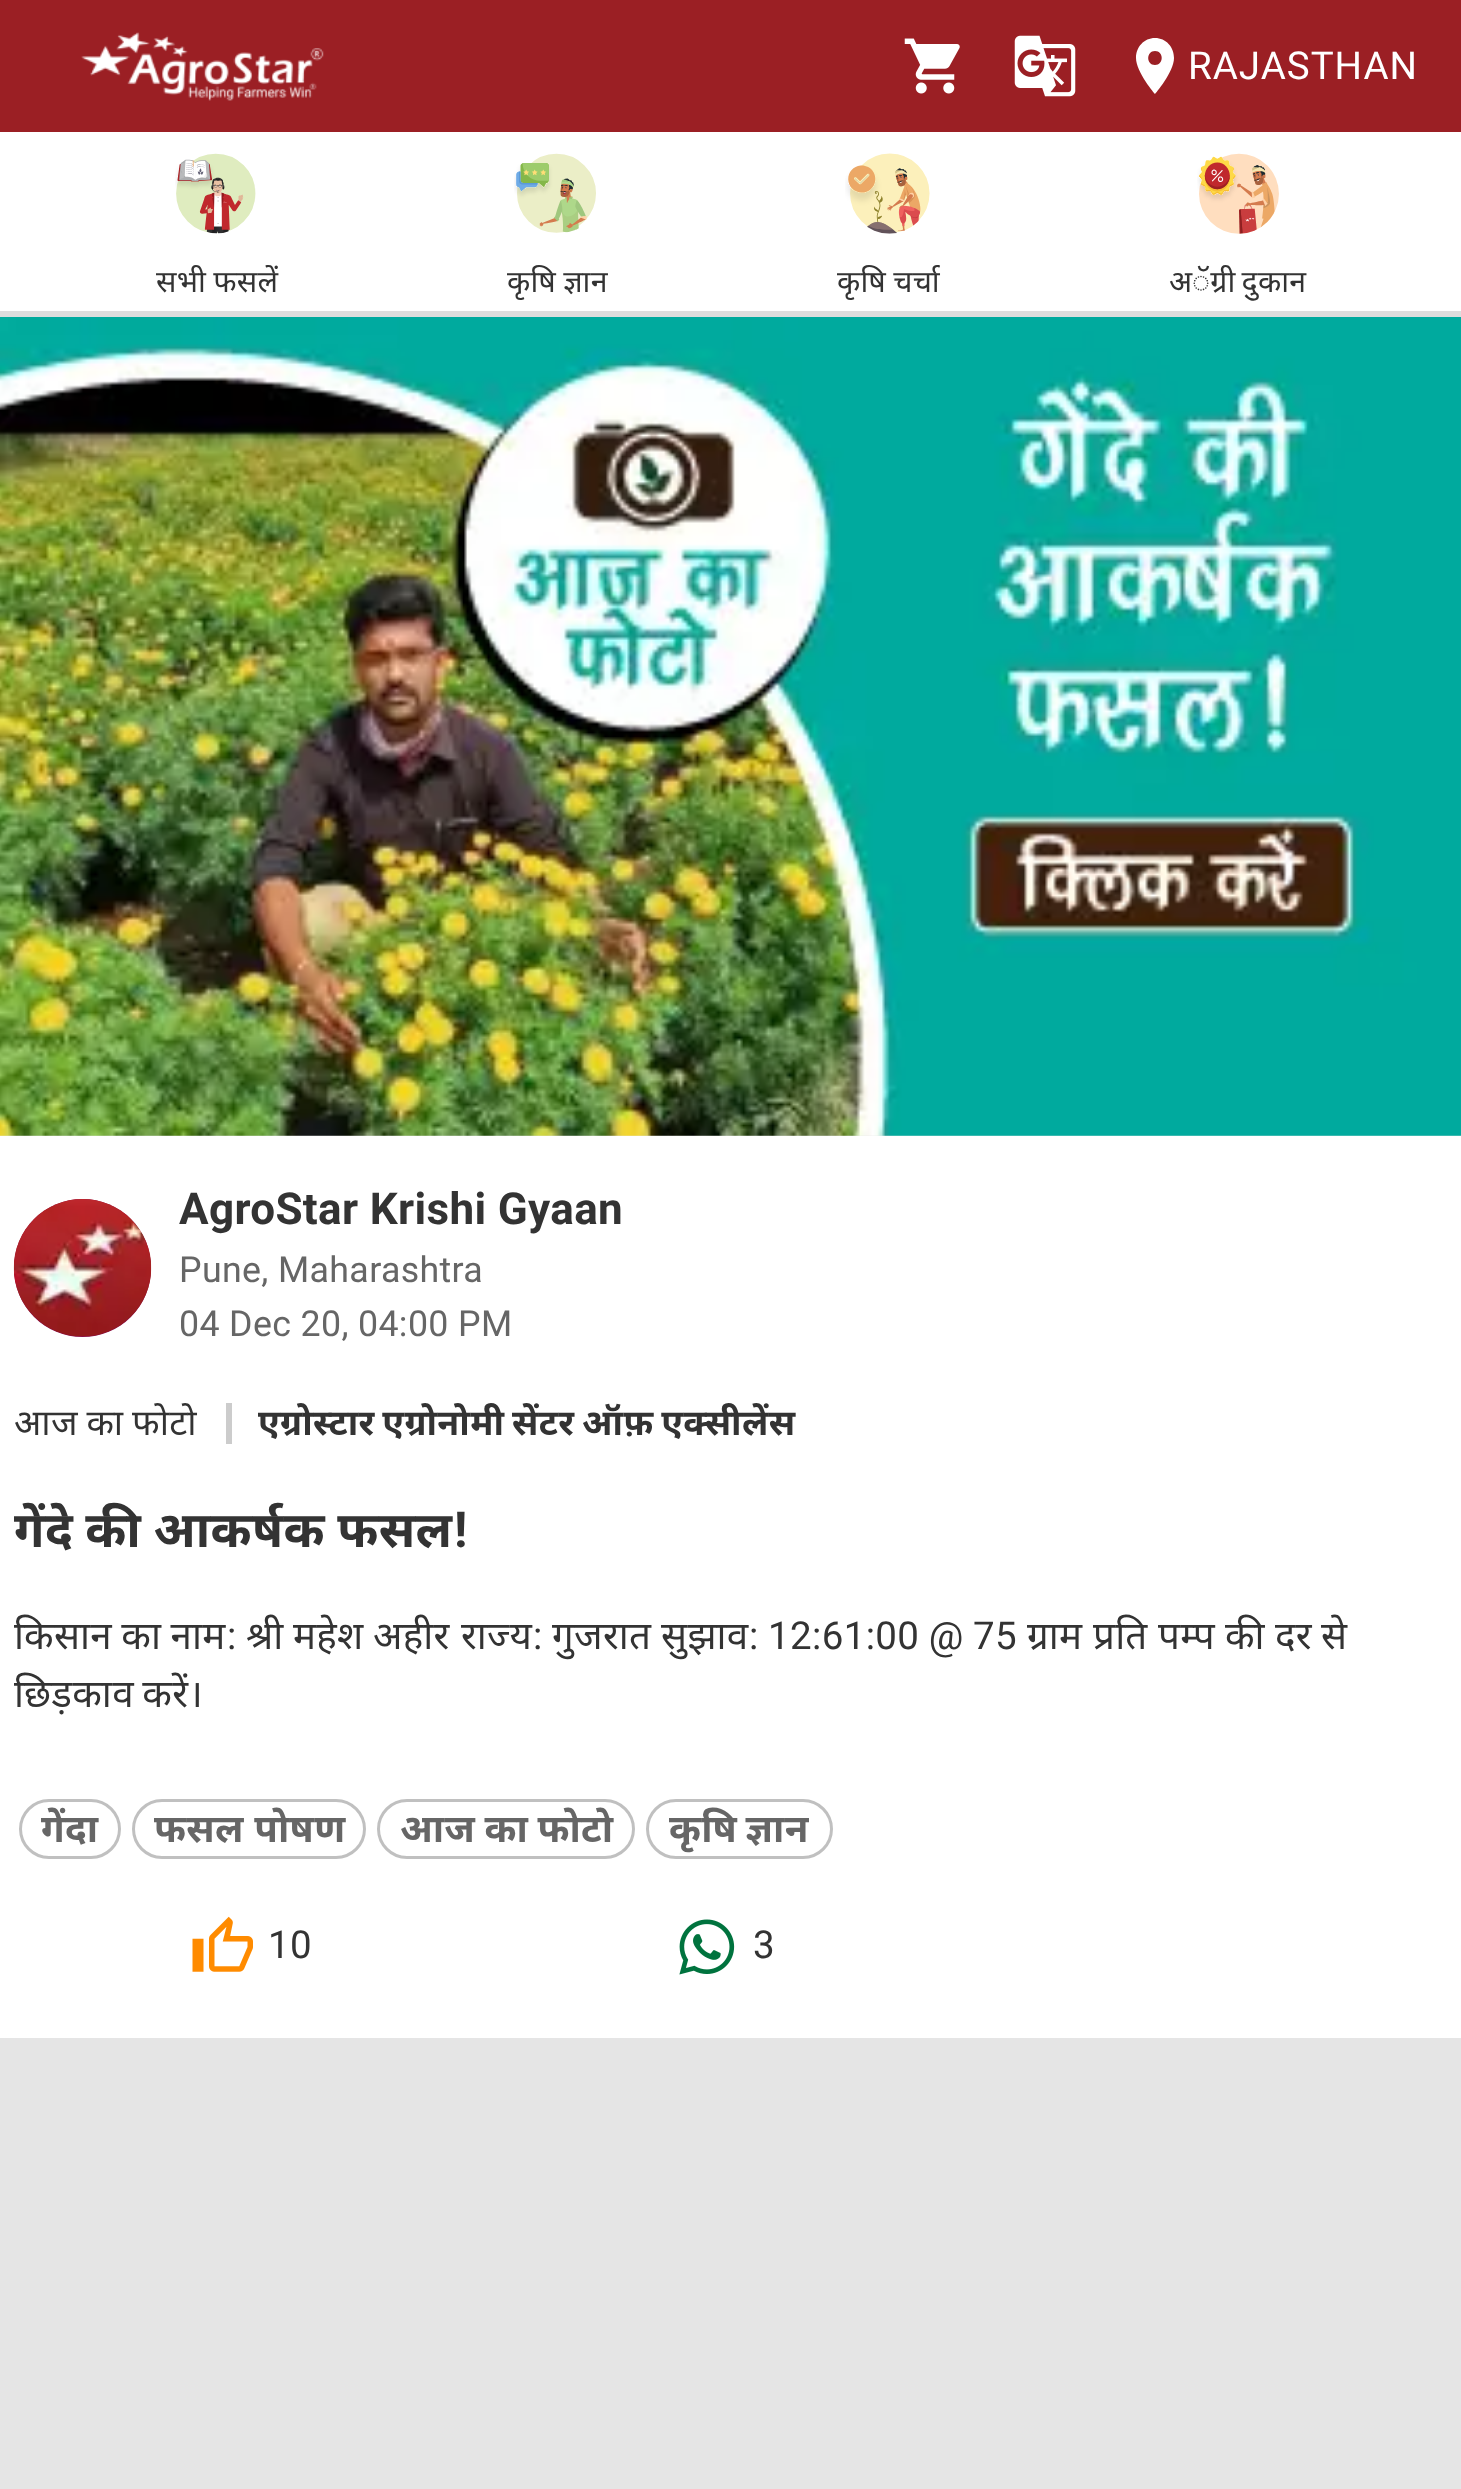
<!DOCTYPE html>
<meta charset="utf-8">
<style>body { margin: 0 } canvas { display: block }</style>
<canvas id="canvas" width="1461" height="2489"></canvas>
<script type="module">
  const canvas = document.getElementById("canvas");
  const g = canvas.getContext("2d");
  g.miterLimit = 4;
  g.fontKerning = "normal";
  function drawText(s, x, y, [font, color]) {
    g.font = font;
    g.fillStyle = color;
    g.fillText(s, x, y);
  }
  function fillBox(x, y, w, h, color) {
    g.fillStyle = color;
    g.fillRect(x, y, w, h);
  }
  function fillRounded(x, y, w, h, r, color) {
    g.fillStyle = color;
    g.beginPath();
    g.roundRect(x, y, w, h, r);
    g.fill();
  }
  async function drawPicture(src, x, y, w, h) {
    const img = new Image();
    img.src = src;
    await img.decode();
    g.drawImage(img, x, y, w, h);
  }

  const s1 = ["38.5px Roboto", "#FFFFFF"];
  const s2 = ["30.25px 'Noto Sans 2'", "#333333"];
  const s3 = ["bold 44px Roboto", "#333333"];
  const s4 = ["35.75px Roboto", "#666666"];
  const s5 = ["35.75px Noto Sans", "#333333"];
  const s6 = ["bold 35.75px Noto Sans", "#333333"];
  const s7 = ["bold 49.5px Noto Sans", "#333333"];
  const s8 = ["bold 49.5px Roboto", "#333333"];
  const s9 = ["38.5px Noto Sans", "#333333"];
  const s10 = ["38.5px Roboto", "#333333"];
  const s11 = ["bold 38.5px Noto Sans", "#666666"];

  fillBox(0, 0, 1461, 2489, "#E5E5E5");
  fillBox(0, 0, 1461, 132, "#9B1F24");
  await drawPicture("pic1.png", 81, 32, 243, 69);
  await drawPicture("pic2.png", 904, 38, 56, 56);
  await drawPicture("pic3.png", 1014, 35, 62, 62);
  g.fillStyle = "#FFFFFF";
  g.beginPath();
  g.moveTo(1155, 38);
  g.bezierCurveTo(1144, 38, 1136, 47, 1136, 58);
  g.bezierCurveTo(1136, 72, 1155, 94, 1155, 94);
  g.bezierCurveTo(1155, 94, 1174, 72, 1174, 58);
  g.bezierCurveTo(1174, 47, 1166, 38, 1155, 38);
  g.closePath();
  g.moveTo(1155, 65);
  g.bezierCurveTo(1146, 65, 1146, 51, 1155, 51);
  g.bezierCurveTo(1164, 51, 1164, 65, 1155, 65);
  g.closePath();
  g.fill();
  g.letterSpacing = "1px";
  drawText("RAJASTHAN", 1188, 79, s1);
  fillBox(0, 132, 1461, 179, "#FFFFFF");
  fillBox(0, 311, 1461, 6, "#DDDDDD");
  await drawPicture("pic4.png", 175, 153, 81, 81);
  g.letterSpacing = "0.25px";
  g.wordSpacing = "-1px";
  drawText("सभी फसलें", 156, 292, s2);
  await drawPicture("pic5.png", 514, 153, 82, 80);
  drawText("कृषि ज्ञान", 507, 292, s2);
  await drawPicture("pic6.png", 845, 153, 85, 81);
  drawText("कृषि चर्चा", 837, 292, s2);
  await drawPicture("pic7.png", 1197, 153, 82, 81);
  g.wordSpacing = "-2px";
  drawText("अॅग्री दुकान", 1169, 292, s2);
  await drawPicture("pic8.png", 0, 317, 1461, 819);
  fillBox(0, 1136, 1461, 902, "#FFFFFF");
  fillRounded(14, 1199, 137, 138, 68.5, "#880E4F");
  await drawPicture("pic9.png", 13, 1199, 139, 138);
  g.letterSpacing = "0.35px";
  g.wordSpacing = "0px";
  drawText("AgroStar Krishi Gyaan", 179, 1224, s3);
  drawText("Pune, Maharashtra", 179, 1282, s4);
  drawText("04 Dec 20, 04:00 PM", 179, 1336, s4);
  g.wordSpacing = "-1px";
  drawText("आज का फोटो", 14, 1435, s5);
  fillBox(226, 1403, 6, 41, "#CCCCCC");
  g.wordSpacing = "-2px";
  drawText("एग्रोस्टार एग्रोनोमी सेंटर ऑफ़ एक्सीलेंस", 258, 1435, s6);
  g.wordSpacing = "-1px";
  drawText("गेंदे की आकर्षक फसल", 14, 1547, s7);
  g.wordSpacing = "0px";
  drawText("!", 454, 1547, s8);
  g.save();
  g.beginPath();
  g.rect(14, 1609, 1435, 115);
  g.clip();
  g.wordSpacing = "-1px";
  drawText("किसान का नाम", 14, 1649, s9);
  g.restore();
  drawText(":", 227, 1649, s10);
  g.wordSpacing = "-1px";
  drawText("श्री महेश अहीर", 246, 1649, s9);
  g.wordSpacing = "0px";
  drawText("राज्य", 461, 1649, s9);
  drawText(":", 533, 1649, s10);
  drawText("गुजरात", 552, 1649, s9);
  drawText("सुझाव", 661, 1649, s9);
  g.wordSpacing = "-0.5px";
  drawText(": 12:61:00 @ 75", 749, 1649, s10);
  g.wordSpacing = "0px";
  drawText("ग्राम", 1027, 1649, s9);
  drawText("प्रति", 1093, 1649, s9);
  drawText("पम्प", 1158, 1649, s9);
  drawText("की", 1225, 1649, s9);
  drawText("दर", 1275, 1649, s9);
  drawText("से", 1321, 1649, s9);
  g.save();
  g.beginPath();
  g.rect(14, 1609, 1435, 115);
  g.clip();
  g.wordSpacing = "-2px";
  drawText("छिड़काव करें।", 14, 1707, s9);
  g.restore();
  g.beginPath();
  g.roundRect(20.5, 1800.5, 99, 57, 28.5);
  g.strokeStyle = "#C0C0C0";
  g.lineWidth = 3;
  g.stroke();
  drawText("गेंदा", 41, 1842, s11);
  g.beginPath();
  g.roundRect(133.5, 1800.5, 231, 57, 28.5);
  g.stroke();
  drawText("फसल पोषण", 154, 1842, s11);
  g.beginPath();
  g.roundRect(378.5, 1800.5, 255, 57, 28.5);
  g.stroke();
  g.wordSpacing = "-1px";
  drawText("आज का फोटो", 400, 1842, s11);
  g.beginPath();
  g.roundRect(647.5, 1800.5, 184, 57, 28.5);
  g.stroke();
  g.wordSpacing = "-2px";
  drawText("कृषि ज्ञान", 669, 1842, s11);
  await drawPicture("pic10.png", 192, 1916, 61, 56);
  g.wordSpacing = "0px";
  drawText("10", 268, 1958, s10);
  await drawPicture("pic11.png", 679, 1919, 56, 56);
  drawText("3", 753, 1958, s10);
</script>
